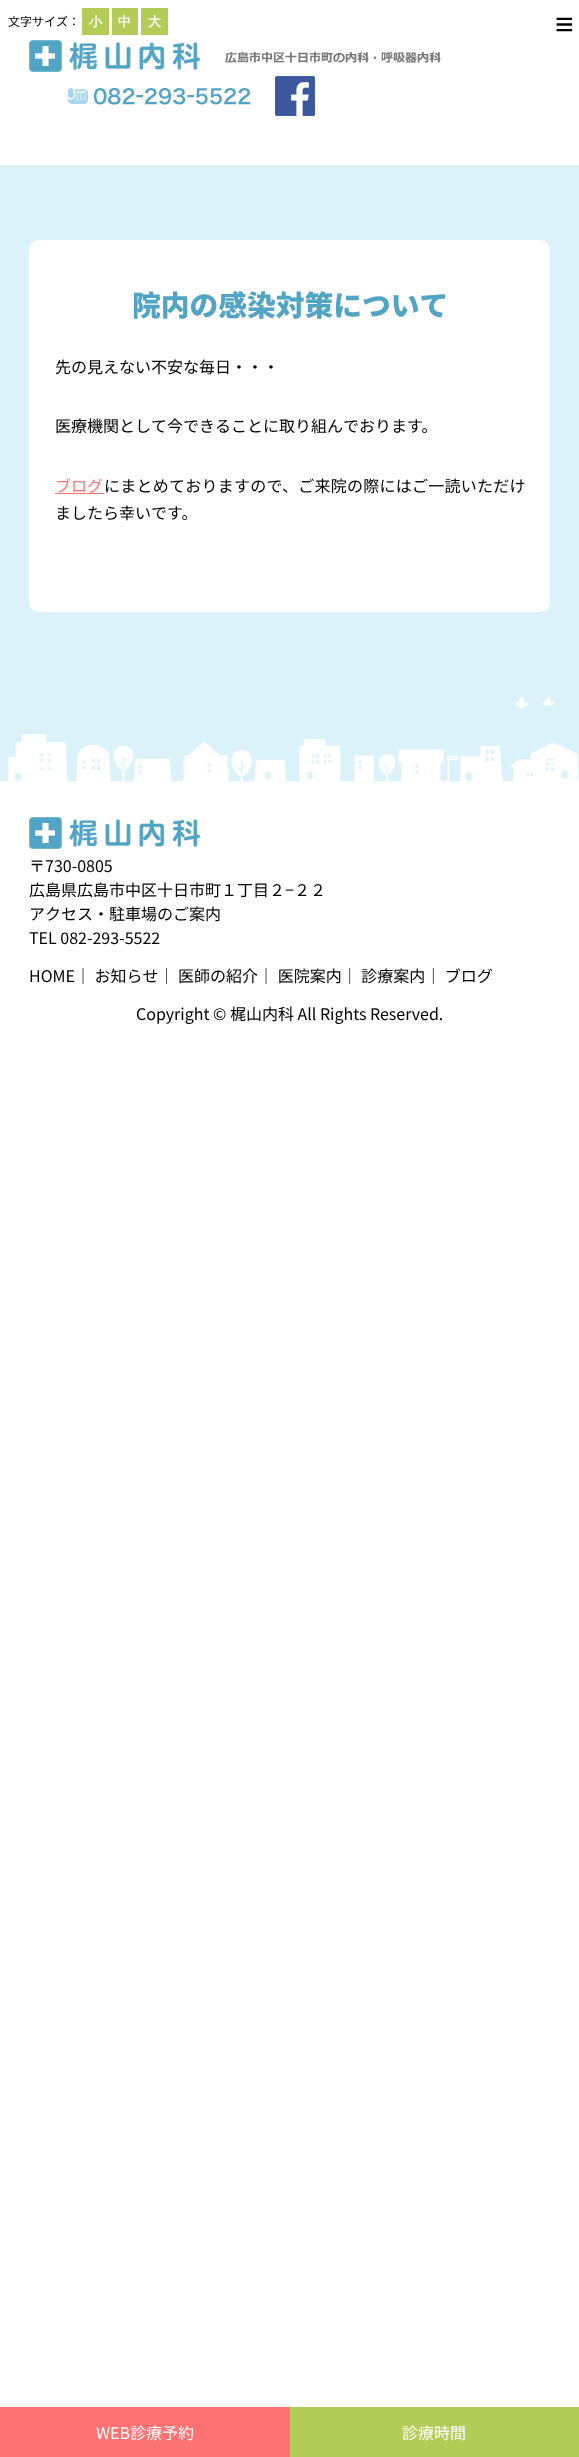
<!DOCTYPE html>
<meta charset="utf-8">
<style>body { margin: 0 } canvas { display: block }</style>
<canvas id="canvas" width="579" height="2457"></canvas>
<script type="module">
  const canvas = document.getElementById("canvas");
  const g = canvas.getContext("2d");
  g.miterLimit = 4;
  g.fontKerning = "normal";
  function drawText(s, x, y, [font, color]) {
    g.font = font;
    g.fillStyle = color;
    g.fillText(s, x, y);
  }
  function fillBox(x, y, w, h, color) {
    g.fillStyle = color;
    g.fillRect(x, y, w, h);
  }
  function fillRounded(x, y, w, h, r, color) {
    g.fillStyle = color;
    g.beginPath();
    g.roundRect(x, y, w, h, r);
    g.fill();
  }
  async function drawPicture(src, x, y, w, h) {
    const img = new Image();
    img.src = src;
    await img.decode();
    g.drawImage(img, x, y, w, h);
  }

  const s1 = ["12px Noto Sans JP", "#000000"];
  const s2 = ["bold 13px WenQuanYi Zen Hei", "#FFFFFF"];
  const s3 = ["16px Noto Sans JP", "#FFFFFF"];
  const s4 = ["32px Liberation Sans", "#000000"];
  const s5 = ["900 28.75px Noto Sans JP", "#52A4C5"];
  const s6 = ["16px Noto Sans JP", "#000000"];
  const s7 = ["16px Noto Sans JP", "#FF7272"];

  fillBox(0, 0, 579, 2457, "#FFFFFF");
  drawText("文字サイズ：", 8, 26, s1);
  fillBox(82, 8, 27, 27, "#B3CC57");
  drawText("小", 89, 26, s2);
  fillBox(112, 8, 26, 27, "#B3CC57");
  drawText("中", 118, 26, s2);
  fillBox(141, 8, 27, 27, "#B3CC57");
  drawText("大", 148, 26, s2);
  await drawPicture("pic1.png", 29, 40, 412, 32);
  await drawPicture("pic2.png", 68, 88, 183, 17);
  await drawPicture("pic3.png", 275, 76, 40, 40);
  fillBox(0, 2407, 290, 50, "#FF7272");
  drawText("WEB診療予約", 96, 2439, s3);
  fillBox(290, 2407, 289, 50, "#B3CC57");
  drawText("診療時間", 402, 2439, s3);
  drawText("≡", 555, 35, s4);
  fillBox(0, 165, 579, 617, "#DCF2FA");
  await drawPicture("pic4.png", 0, 696, 579, 91);
  fillRounded(29, 240, 521, 372, 10, "#FFFFFF");
  drawText("院内の感染対策について", 132, 316, s5);
  drawText("先の見えない不安な毎日・・・", 55, 373, s6);
  drawText("医療機関として今できることに取り組んでおります。", 55, 432, s6);
  fillBox(55, 493, 49, 1, "#FF7272");
  drawText("ブログ", 55, 492, s7);
  g.letterSpacing = "0.25px";
  drawText("にまとめておりますので、ご来院の際にはご一読いただけ", 104, 492, s6);
  g.letterSpacing = "0px";
  drawText("ましたら幸いです。", 55, 519, s6);
  await drawPicture("pic5.png", 29, 817, 171, 32);
  drawText("〒730-0805", 29, 872, s6);
  drawText("広島県広島市中区十日市町１丁目２−２２", 29, 896, s6);
  drawText("アクセス・駐車場のご案内", 29, 920, s6);
  drawText("TEL 082-293-5522", 29, 944, s6);
  drawText("HOME｜ お知らせ｜ 医師の紹介｜ 医院案内｜ 診療案内｜ ブログ", 29, 982, s6);
  drawText("Copyright © 梶山内科 All Rights Reserved.", 136, 1020, s6);
</script>
